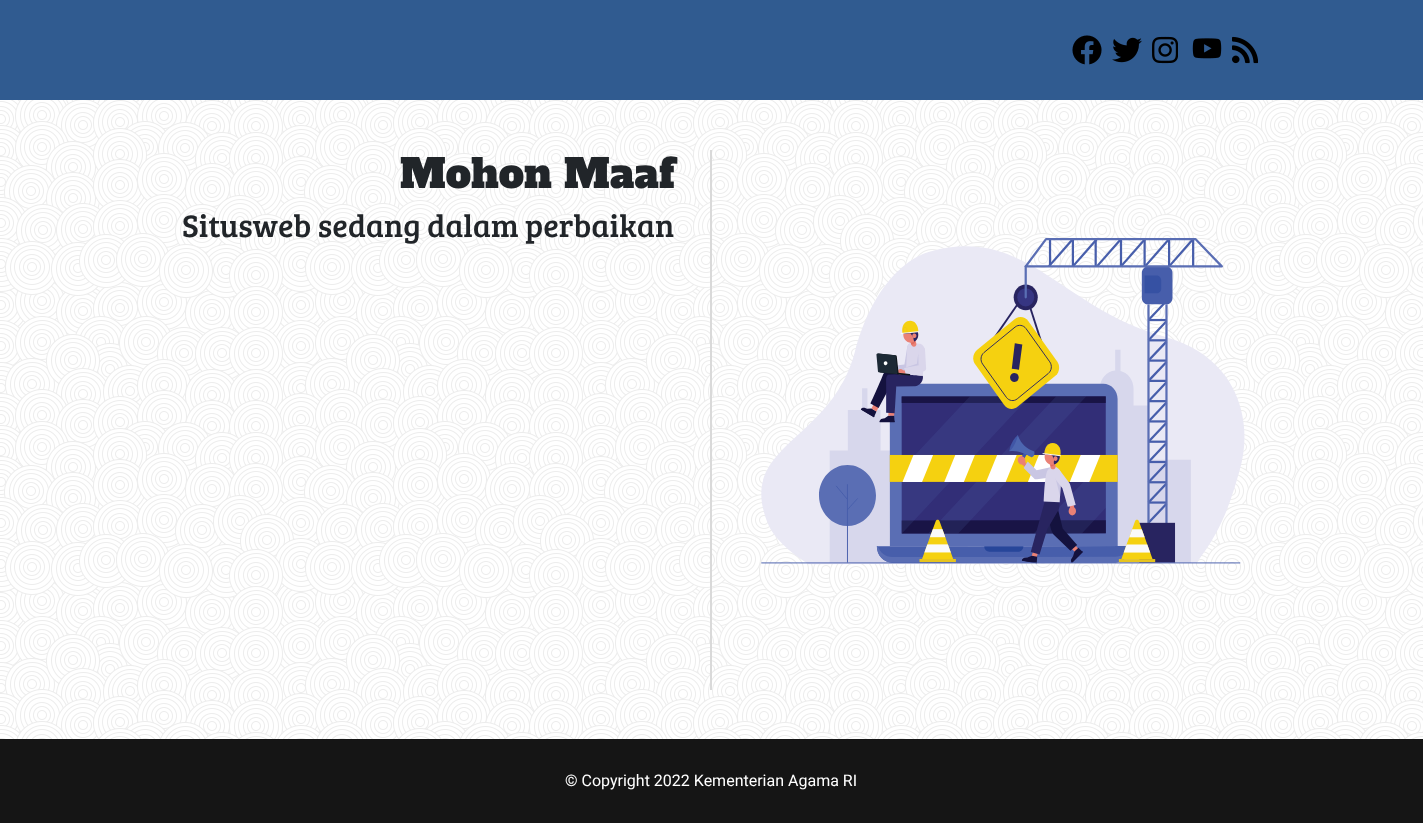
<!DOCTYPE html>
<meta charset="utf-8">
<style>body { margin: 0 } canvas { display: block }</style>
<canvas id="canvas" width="1423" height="823"></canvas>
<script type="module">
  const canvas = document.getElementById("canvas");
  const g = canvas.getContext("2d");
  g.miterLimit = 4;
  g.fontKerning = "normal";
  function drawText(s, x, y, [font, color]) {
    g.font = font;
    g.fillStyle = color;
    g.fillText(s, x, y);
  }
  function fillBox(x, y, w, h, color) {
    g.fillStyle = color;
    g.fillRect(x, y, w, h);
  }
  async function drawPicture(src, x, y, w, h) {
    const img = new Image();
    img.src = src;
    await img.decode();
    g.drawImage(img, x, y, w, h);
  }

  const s1 = ["40px Alfa Slab One", "#212529"];
  const s2 = ["32px Bree Serif", "#212529"];
  const s3 = ["16px Roboto", "#FFFFFF"];

  fillBox(0, 0, 1423, 823, "#FFFFFF");
  await drawPicture("pic1.png", 0, 100, 1423, 639);
  fillBox(0, 0, 1423, 100, "#305B90");
  await drawPicture("pic2.png", 1072, 35, 30, 30);
  await drawPicture("pic3.png", 1112, 37, 30, 26);
  await drawPicture("pic4.png", 1152, 36, 26, 28);
  await drawPicture("pic5.png", 1192, 38, 30, 21);
  await drawPicture("pic6.png", 1232, 36, 26, 28);
  fillBox(710, 150, 2, 540, "#D9D9D9");
  drawText("Mohon Maaf", 400, 188, s1);
  drawText("Situsweb sedang dalam perbaikan", 182, 237, s2);
  await drawPicture("pic7.png", 761, 238, 484, 327);
  fillBox(0, 739, 1423, 84, "#151515");
  drawText("© Copyright 2022 Kementerian Agama RI", 565, 786, s3);
</script>
